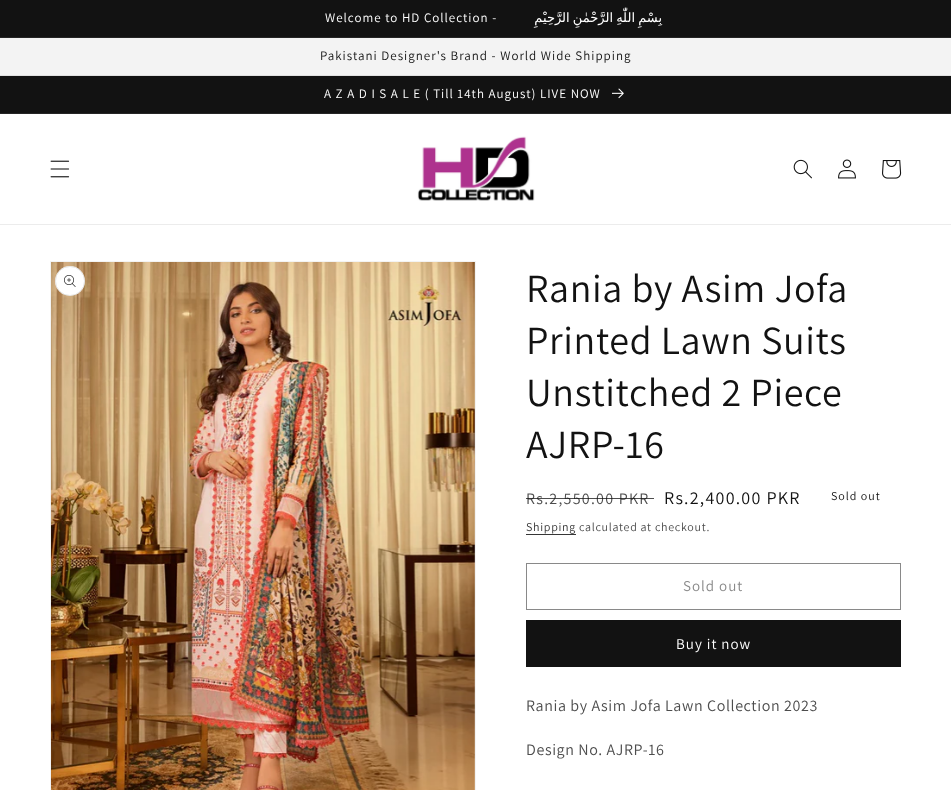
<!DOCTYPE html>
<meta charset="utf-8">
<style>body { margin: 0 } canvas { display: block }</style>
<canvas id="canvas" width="951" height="790"></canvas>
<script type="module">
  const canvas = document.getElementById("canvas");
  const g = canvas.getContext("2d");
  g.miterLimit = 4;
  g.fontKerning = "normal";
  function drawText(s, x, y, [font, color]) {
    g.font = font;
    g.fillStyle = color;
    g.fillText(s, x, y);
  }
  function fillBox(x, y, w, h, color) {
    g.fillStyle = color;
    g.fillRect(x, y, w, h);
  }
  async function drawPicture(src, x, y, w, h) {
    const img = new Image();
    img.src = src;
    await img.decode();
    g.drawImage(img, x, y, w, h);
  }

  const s1 = ["13px Assistant", "#FFFFFF"];
  const s2 = ["13px DejaVu Sans", "#FFFFFF"];
  const s3 = ["13px Assistant", "#121212"];
  const s4 = ["40px Assistant", "#121212"];
  const s5 = ["16px Assistant", "#4D4D4D"];
  const s6 = ["18px Assistant", "#121212"];
  const s7 = ["12px Assistant", "#121212"];
  const s8 = ["12px Assistant", "#363636"];
  const s9 = ["12px Assistant", "#4D4D4D"];
  const s10 = ["15px Assistant", "#898989"];
  const s11 = ["15px Assistant", "#FFFFFF"];

  fillBox(0, 0, 951, 790, "#FFFFFF");
  fillBox(0, 0, 951, 37, "#121212");
  fillBox(0, 37, 951, 1, "#252525");
  g.letterSpacing = "1px";
  drawText("Welcome to HD Collection -", 325, 22, s1);
  g.wordSpacing = "-2px";
  g.direction = "rtl";
  drawText("بِسْمِ اللّٰهِ الرَّحْمٰنِ الرَّحِیْمِ", 662, 22, s2);
  fillBox(0, 38, 951, 37, "#F3F3F3");
  fillBox(0, 75, 951, 1, "#E1E1E1");
  g.wordSpacing = "0px";
  g.direction = "ltr";
  drawText("Pakistani Designer's Brand - World Wide Shipping", 320, 60, s3);
  fillBox(0, 76, 951, 37, "#121212");
  fillBox(0, 113, 951, 1, "#252525");
  drawText("A Z A D I S A L E ( Till 14th August) LIVE NOW", 324, 98, s1);
  await drawPicture("pic1.png", 612, 88, 12, 11);
  fillBox(0, 224, 951, 1, "#ECECEC");
  await drawPicture("pic2.png", 50, 160, 20, 18);
  await drawPicture("pic3.png", 417, 136, 118, 65);
  await drawPicture("pic4.png", 793, 159, 19, 20);
  await drawPicture("pic5.png", 838, 159, 18, 20);
  await drawPicture("pic6.png", 882, 160, 20, 19);
  g.strokeStyle = "#F3F3F3";
  g.strokeRect(50.5, 261.5, 425, 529);
  await drawPicture("pic7.png", 51, 262, 424, 528);
  g.fillStyle = "#FFFFFF";
  g.beginPath();
  g.arc(70, 281, 15, 0, Math.PI * 2);
  g.fill();
  g.beginPath();
  g.arc(70, 281, 14.5, 0, Math.PI * 2);
  g.strokeStyle = "rgba(18, 18, 18, 0.1)";
  g.stroke();
  await drawPicture("pic8.png", 64, 275, 12, 12);
  g.letterSpacing = "0.6px";
  drawText("Rania by Asim Jofa", 526, 302, s4);
  drawText("Printed Lawn Suits", 526, 354, s4);
  drawText("Unstitched 2 Piece", 526, 406, s4);
  drawText("AJRP-16", 526, 458, s4);
  g.letterSpacing = "1.25px";
  drawText("Rs.2,550.00 PKR", 526, 504, s5);
  fillBox(526, 498, 128, 1, "rgba(18, 18, 18, 0.75)");
  drawText("Rs.2,400.00 PKR", 664, 504, s6);
  g.letterSpacing = "1px";
  drawText("Sold out", 831, 500, s7);
  g.letterSpacing = "0.7px";
  drawText("Shipping", 526, 531, s8);
  fillBox(526, 534, 50, 1, "#363636");
  drawText("calculated at checkout.", 579, 531, s9);
  g.strokeStyle = "#898989";
  g.strokeRect(526.5, 563.5, 374, 46);
  g.letterSpacing = "1px";
  drawText("Sold out", 683, 591, s10);
  fillBox(526, 620, 375, 47, "#121212");
  drawText("Buy it now", 676, 649, s11);
  g.letterSpacing = "0.6px";
  drawText("Rania by Asim Jofa Lawn Collection 2023", 526, 711, s5);
  drawText("Design No. AJRP-16", 526, 755, s5);
</script>
